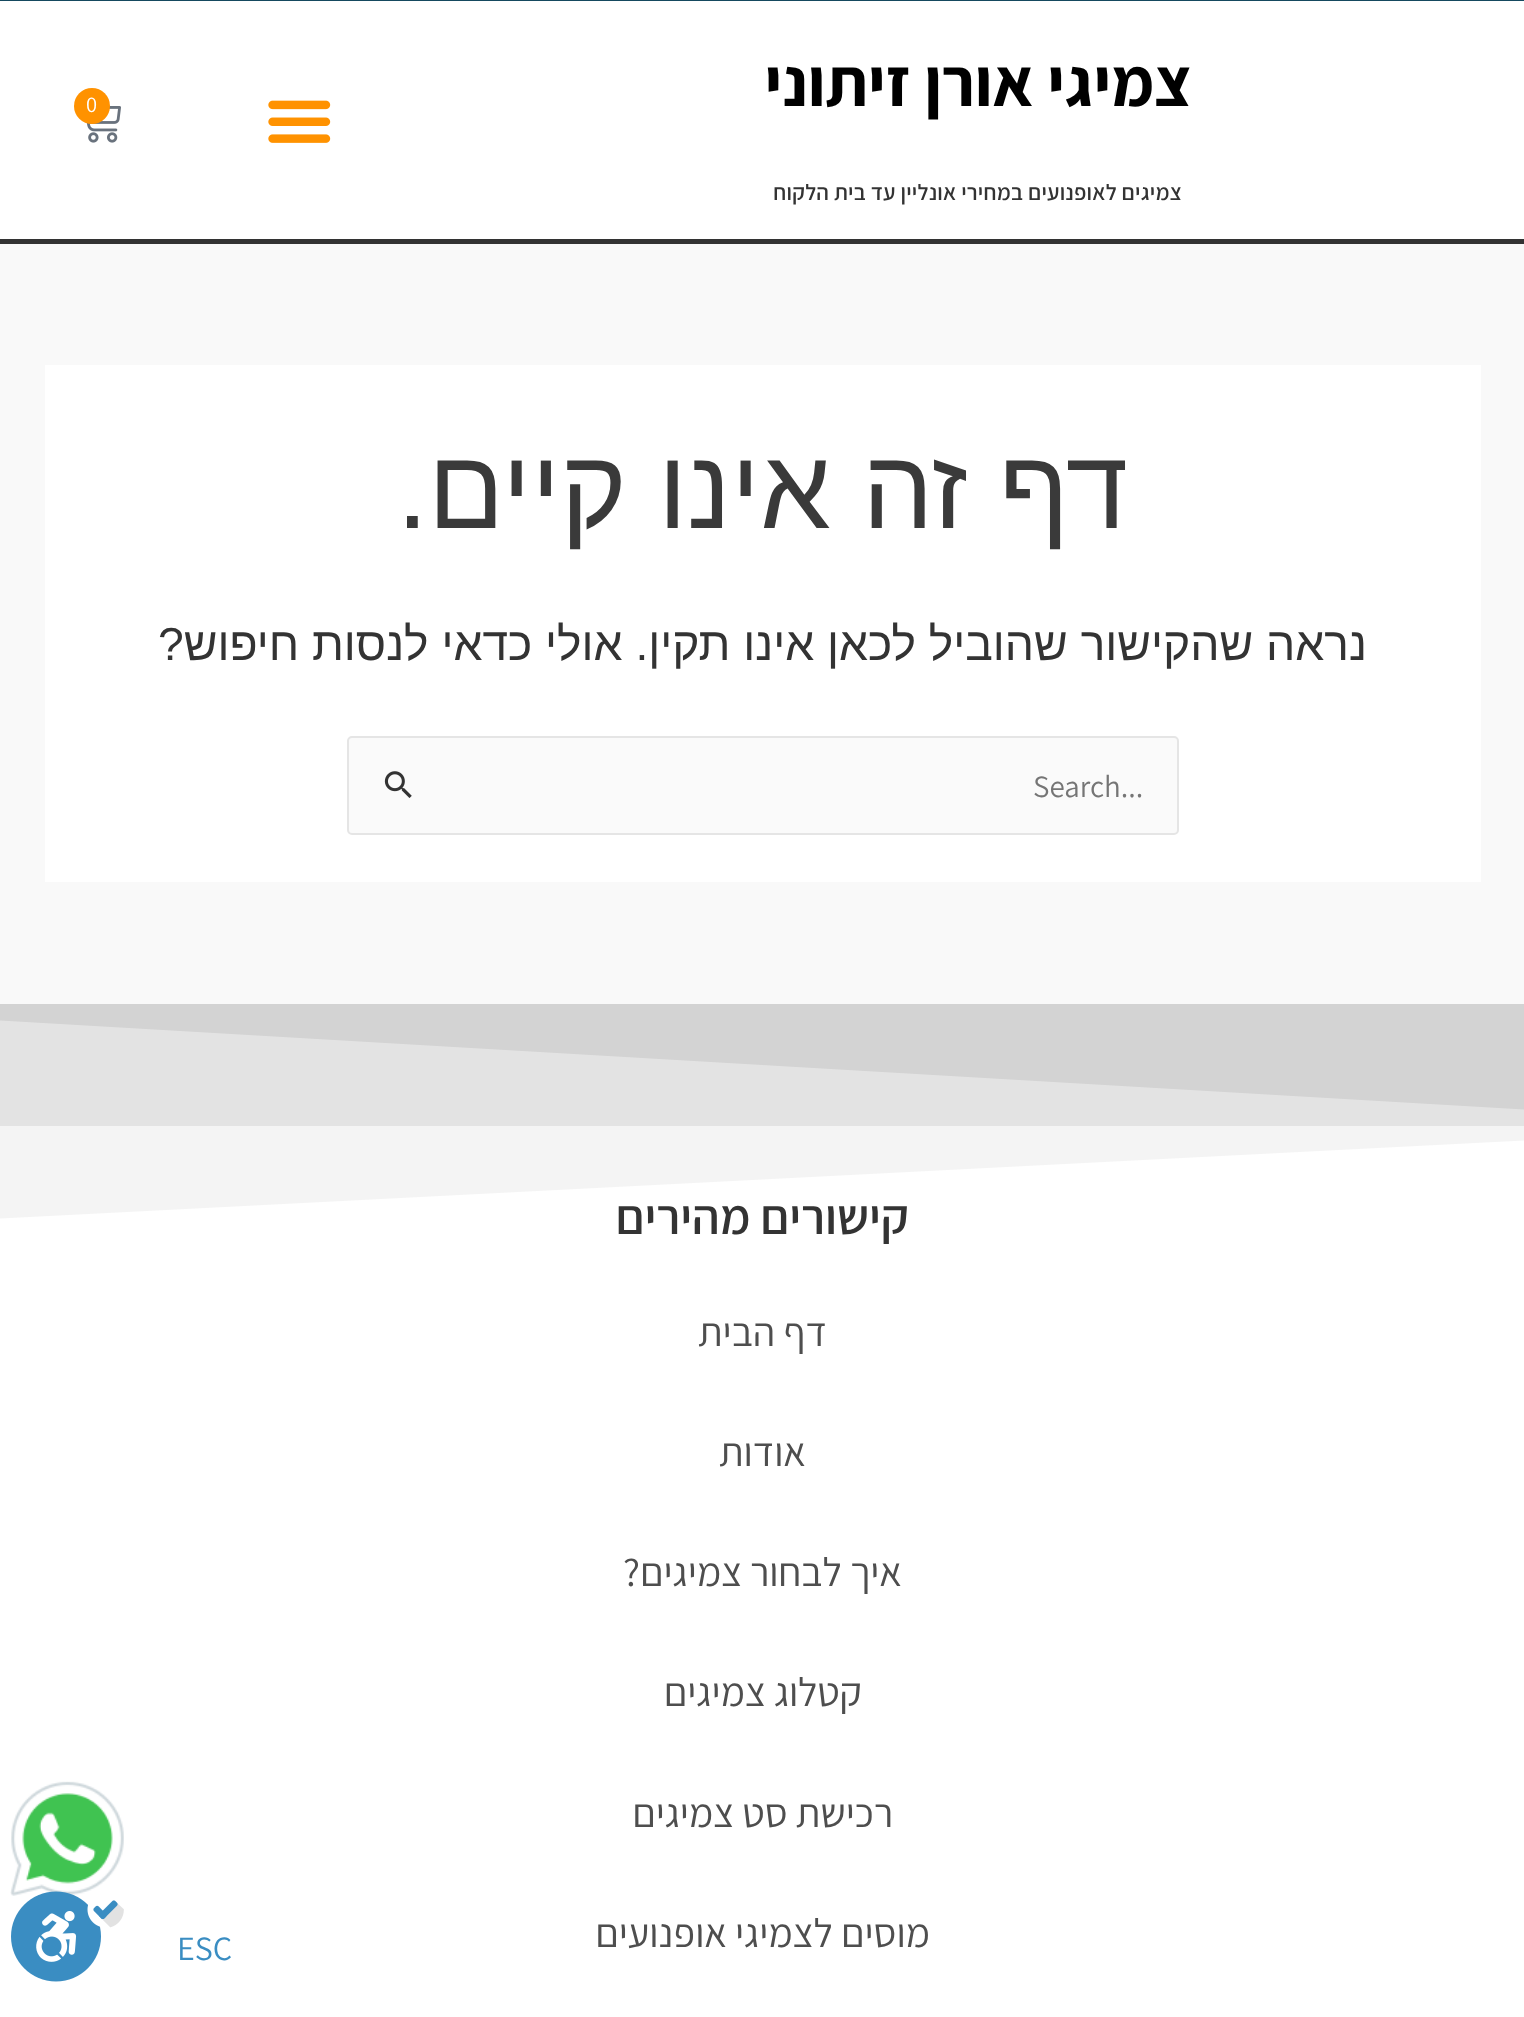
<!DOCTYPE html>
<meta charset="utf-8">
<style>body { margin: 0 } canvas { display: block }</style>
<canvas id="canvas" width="1524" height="2017"></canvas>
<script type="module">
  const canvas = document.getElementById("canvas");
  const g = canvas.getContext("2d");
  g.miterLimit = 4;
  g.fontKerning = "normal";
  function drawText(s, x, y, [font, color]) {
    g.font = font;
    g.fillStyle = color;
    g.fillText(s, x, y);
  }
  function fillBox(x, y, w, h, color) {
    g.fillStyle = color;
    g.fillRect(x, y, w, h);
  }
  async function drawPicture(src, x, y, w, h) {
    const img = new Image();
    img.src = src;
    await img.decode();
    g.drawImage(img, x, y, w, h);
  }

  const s1 = ["bold 67.5px Assistant", "#000000"];
  const s2 = ["600 22.5px Assistant", "#333333"];
  const s3 = ["22.5px Assistant", "#FFFFFF"];
  const s4 = ["112.5px Liberation Sans", "#3A3A3A"];
  const s5 = ["46.2px Liberation Sans", "#333333"];
  const s6 = ["31px Assistant", "#757575"];
  const s7 = ["600 49.5px Assistant", "#333333"];
  const s8 = ["40.5px Assistant", "#4E4E4E"];
  const s9 = ["34px Assistant", "#3A8DC2"];

  fillBox(0, 0, 1524, 2017, "#F9F9F9");
  fillBox(0, 1, 1524, 238, "#FFFFFF");
  fillBox(0, 239, 1524, 5, "#333333");
  g.direction = "rtl";
  drawText("צמיגי אורן זיתוני", 1192, 106, s1);
  g.letterSpacing = "0.25px";
  drawText("צמיגים לאופנועים במחירי אונליין עד בית הלקוח", 1182, 200, s2);
  await drawPicture("pic1.png", 268, 100, 63, 43);
  await drawPicture("pic2.png", 86, 106, 35, 37);
  g.fillStyle = "#FF9200";
  g.beginPath();
  g.arc(92, 106, 18, 0, Math.PI * 2);
  g.fill();
  g.letterSpacing = "0px";
  g.direction = "ltr";
  drawText("0", 86, 112, s3);
  fillBox(45, 365, 1436, 517, "#FFFFFF");
  g.direction = "rtl";
  drawText("דף זה אינו קיים.", 1128, 528, s4);
  drawText("נראה שהקישור שהוביל לכאן אינו תקין. אולי כדאי לנסות חיפוש?", 1367, 660, s5);
  g.fillStyle = "#FAFAFA";
  g.beginPath();
  g.roundRect(348, 737, 830, 97, 4);
  g.fill();
  g.strokeStyle = "#E5E5E5";
  g.lineWidth = 2;
  g.stroke();
  g.direction = "ltr";
  drawText("Search...", 1033, 797, s6);
  await drawPicture("pic3.png", 384, 771, 28, 27);
  fillBox(0, 1126, 1524, 891, "#FFFFFF");
  await drawPicture("pic4.png", 10, 1781, 114, 115);
  fillBox(0, 1020, 1524, 106, "#E9E9E9");
  g.fillStyle = "#D3D3D3";
  g.beginPath();
  g.moveTo(-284, 1004);
  g.lineTo(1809, 1004);
  g.lineTo(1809, 1126);
  g.closePath();
  g.fill();
  g.fillStyle = "rgba(211, 211, 211, 0.25)";
  g.beginPath();
  g.moveTo(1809, 1004);
  g.lineTo(-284, 1004);
  g.lineTo(-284, 1233);
  g.lineTo(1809, 1126);
  g.closePath();
  g.fill();
  g.direction = "rtl";
  drawText("קישורים מהירים", 909, 1234, s7);
  drawText("דף הבית", 827, 1346, s8);
  drawText("אודות", 806, 1466, s8);
  drawText("איך לבחור צמיגים?", 902, 1586, s8);
  drawText("קטלוג צמיגים", 862, 1706, s8);
  drawText("רכישת סט צמיגים", 893, 1827, s8);
  drawText("מוסים לצמיגי אופנועים", 930, 1947, s8);
  fillBox(0, 0, 1524, 1, "#15495F");
  g.direction = "ltr";
  drawText("ESC", 177, 1960, s9);
  await drawPicture("pic5.png", 11, 1891, 113, 91);
</script>
